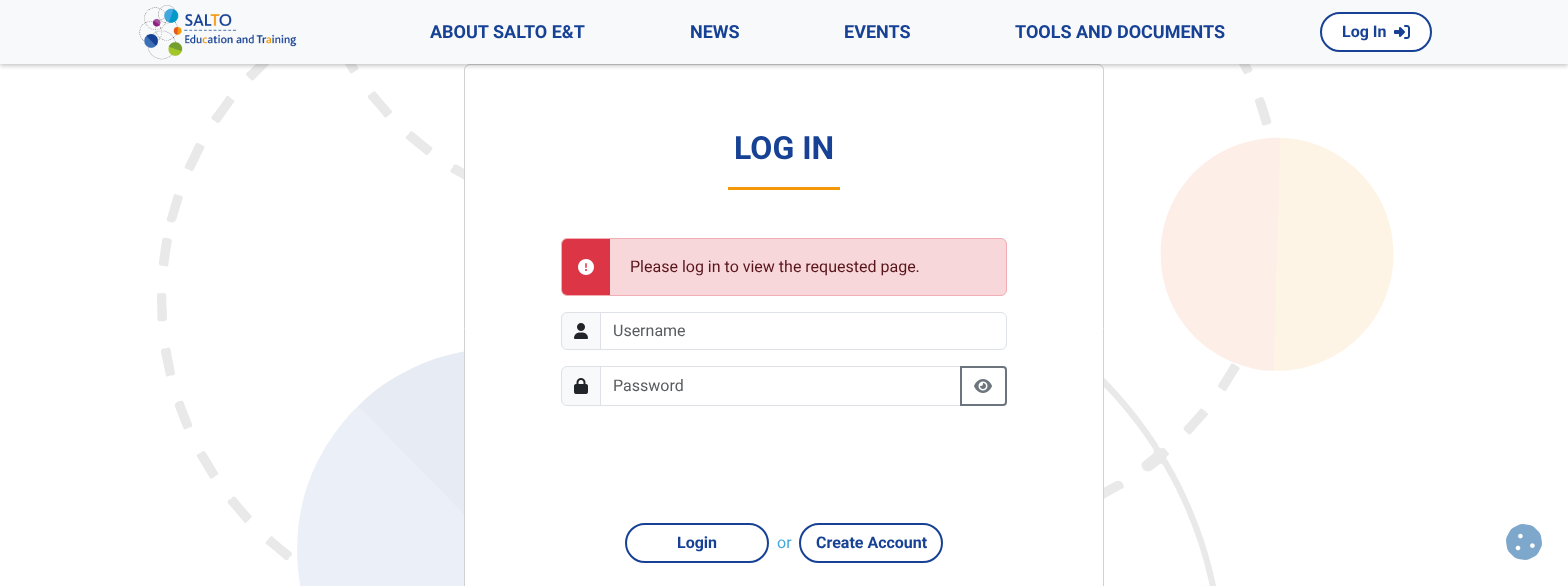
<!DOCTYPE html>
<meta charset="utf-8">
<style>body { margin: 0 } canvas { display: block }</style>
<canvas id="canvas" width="1568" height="586"></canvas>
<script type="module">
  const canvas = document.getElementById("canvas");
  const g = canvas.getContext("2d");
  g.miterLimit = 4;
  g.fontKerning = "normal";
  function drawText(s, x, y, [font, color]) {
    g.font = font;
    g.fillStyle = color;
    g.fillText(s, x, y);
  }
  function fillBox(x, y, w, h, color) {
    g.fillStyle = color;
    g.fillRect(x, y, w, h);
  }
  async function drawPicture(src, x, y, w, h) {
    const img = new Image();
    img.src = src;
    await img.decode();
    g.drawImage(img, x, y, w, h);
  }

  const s1 = ["bold 18px Roboto", "#164194"];
  const s2 = ["bold 16px Roboto", "#164194"];
  const s3 = ["bold 32px Roboto", "#164194"];
  const s4 = ["16px Roboto", "#58151C"];
  const s5 = ["16px Roboto", "#595C5F"];
  const s6 = ["16px Roboto", "#42A7DE"];

  fillBox(0, 0, 1568, 586, "#FFFFFF");
  await drawPicture("pic3.png", 157, 64, 1237, 522);
  g.beginPath();
  g.roundRect(464, 64, 640, 522, [6, 6, 0, 0]);
  g.fill();
  g.beginPath();
  g.roundRect(464.5, 64.5, 639, 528, 5.5);
  g.strokeStyle = "#D2D2D2";
  g.stroke();
  g.fillStyle = "rgba(33, 37, 41, 0.25)";
  g.filter = "blur(2px)";
  g.beginPath();
  g.rect(0, 2, 1568, 64);
  g.fill();
  g.filter = "none";
  fillBox(0, 0, 1568, 64, "#F8F9FA");
  await drawPicture("pic1.png", 139, 5, 158, 55);
  drawText("ABOUT SALTO E&T", 430, 38, s1);
  drawText("NEWS", 690, 38, s1);
  drawText("EVENTS", 844, 38, s1);
  drawText("TOOLS AND DOCUMENTS", 1015, 38, s1);
  g.fillStyle = "#FFFFFF";
  g.beginPath();
  g.roundRect(1321, 13, 110, 38, 19);
  g.fill();
  g.strokeStyle = "#164194";
  g.lineWidth = 2;
  g.stroke();
  drawText("Log In", 1342, 37, s2);
  await drawPicture("pic2.png", 1394, 25, 16, 14);
  drawText("LOG IN", 734, 159, s3);
  fillBox(728, 187, 112, 3, "#F4980A");
  g.fillStyle = "#F8D7DA";
  g.beginPath();
  g.roundRect(561.5, 238.5, 445, 57, 5.5);
  g.fill();
  g.strokeStyle = "#F1AEB5";
  g.lineWidth = 1;
  g.stroke();
  g.fillStyle = "#DC3545";
  g.beginPath();
  g.roundRect(562, 239, 48, 56, [5, 0, 0, 5]);
  g.fill();
  await drawPicture("pic4.png", 578, 259, 16, 16);
  drawText("Please log in to view the requested page.", 630, 272, s4);
  g.fillStyle = "#F8F9FA";
  g.beginPath();
  g.roundRect(561.5, 312.5, 39, 37, [5.5, 0, 0, 5.5]);
  g.fill();
  g.strokeStyle = "#DEE2E6";
  g.stroke();
  await drawPicture("pic5.png", 574, 323, 14, 16);
  g.beginPath();
  g.roundRect(600.5, 312.5, 406, 37, [0, 5.5, 5.5, 0]);
  g.stroke();
  drawText("Username", 613, 336, s5);
  g.fillStyle = "#F8F9FA";
  g.beginPath();
  g.roundRect(561.5, 366.5, 39, 39, [5.5, 0, 0, 5.5]);
  g.fill();
  g.stroke();
  await drawPicture("pic6.png", 574, 378, 14, 16);
  g.strokeRect(600.5, 366.5, 360, 39);
  drawText("Password", 613, 391, s5);
  g.fillStyle = "#FFFFFF";
  g.beginPath();
  g.roundRect(961, 367, 45, 38, [0, 3, 3, 0]);
  g.fill();
  g.strokeStyle = "#6C757D";
  g.lineWidth = 2;
  g.stroke();
  await drawPicture("pic7.png", 974, 379, 18, 14);
  g.beginPath();
  g.roundRect(626, 524, 142, 38, 19);
  g.strokeStyle = "#164194";
  g.stroke();
  drawText("Login", 677, 548, s2);
  drawText("or", 777, 548, s6);
  g.beginPath();
  g.roundRect(800, 524, 142, 38, 19);
  g.stroke();
  drawText("Create Account", 816, 548, s2);
  await drawPicture("pic8.png", 1506, 524, 36, 36);
</script>
